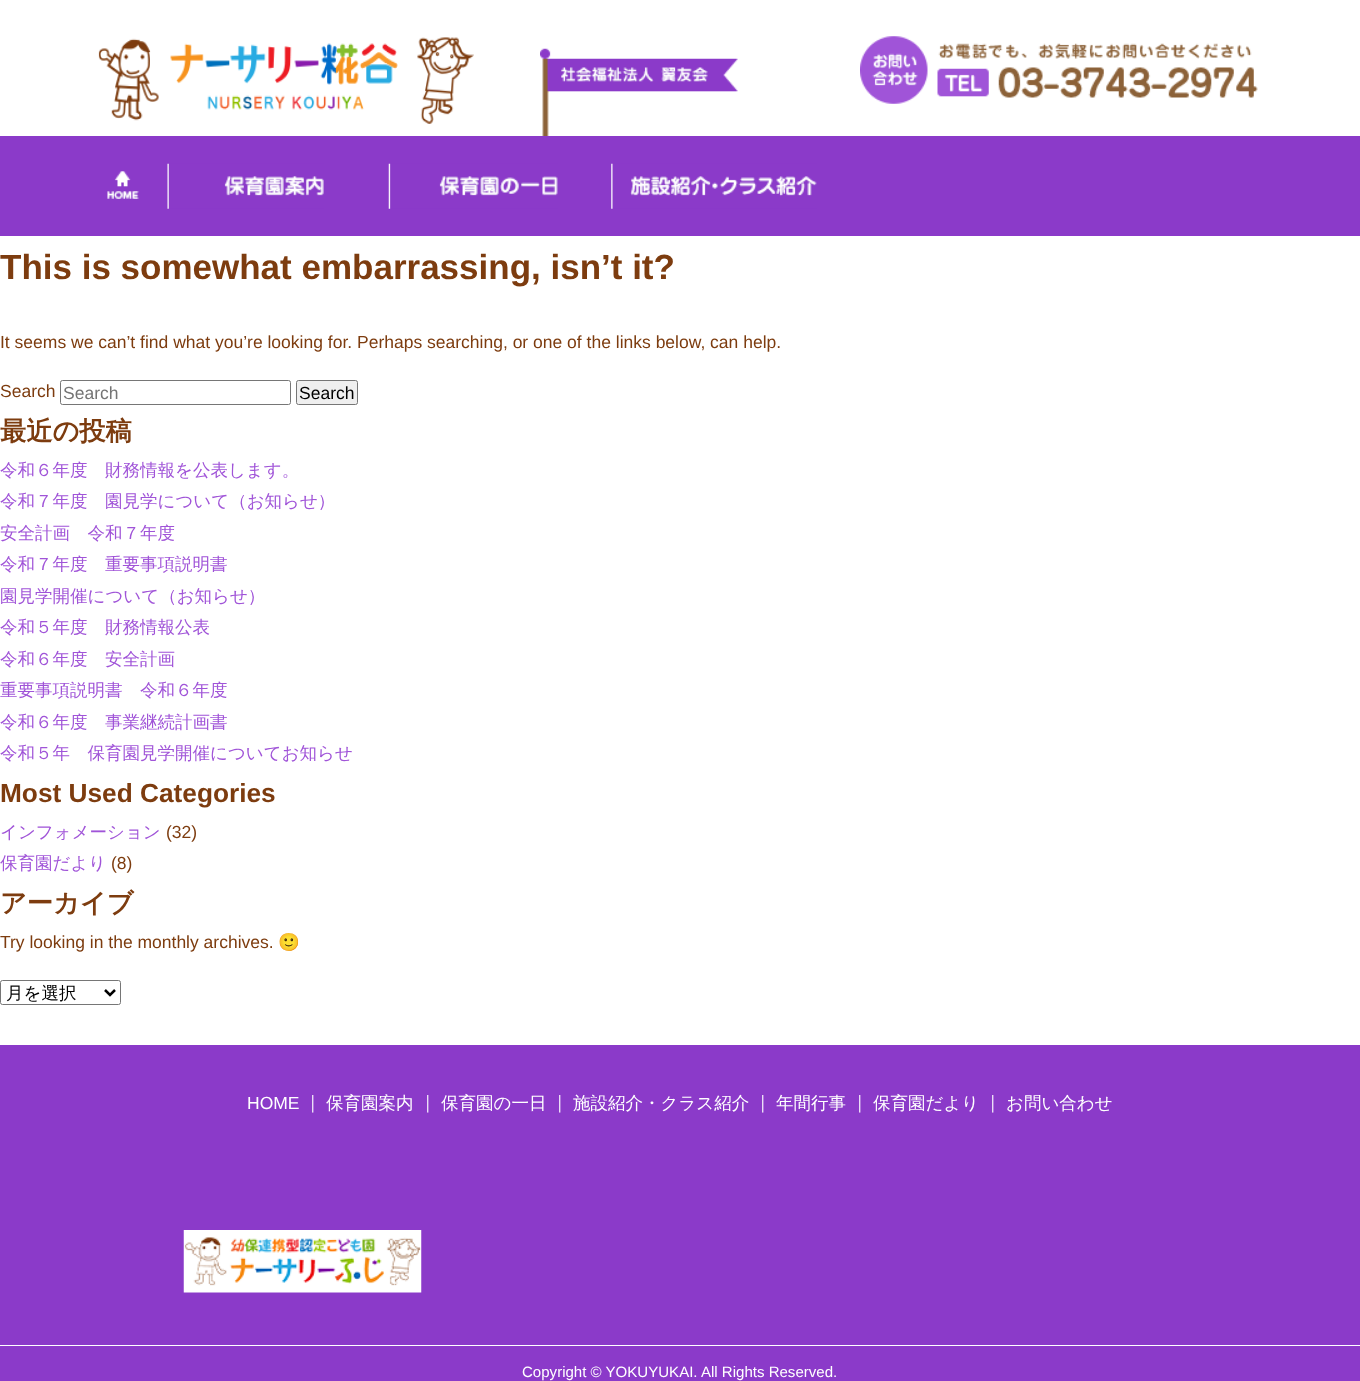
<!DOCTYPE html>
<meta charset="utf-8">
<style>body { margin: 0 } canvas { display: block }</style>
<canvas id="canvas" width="1360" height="1381"></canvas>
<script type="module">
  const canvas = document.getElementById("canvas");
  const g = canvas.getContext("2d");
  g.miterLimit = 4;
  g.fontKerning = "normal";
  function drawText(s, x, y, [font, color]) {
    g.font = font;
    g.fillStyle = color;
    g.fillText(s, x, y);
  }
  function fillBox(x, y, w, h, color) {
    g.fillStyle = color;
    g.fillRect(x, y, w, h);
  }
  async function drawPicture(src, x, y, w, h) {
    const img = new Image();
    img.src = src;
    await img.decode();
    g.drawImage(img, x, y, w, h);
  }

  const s1 = ["bold 35px Liberation Sans", "#7D3C0F"];
  const s2 = ["17.5px Liberation Sans", "#7D3C0F"];
  const s3 = ["17.5px Liberation Sans", "#757575"];
  const s4 = ["17.5px Liberation Sans", "#000000"];
  const s5 = ["bold 26.25px WenQuanYi Zen Hei", "#7D3C0F"];
  const s6 = ["500 17.5px WenQuanYi Zen Hei", "#A054D8"];
  const s7 = ["bold 26.25px Liberation Sans", "#7D3C0F"];
  const s8 = ["17.5px Noto Color Emoji", "#7D3C0F"];
  const s9 = ["500 17.5px WenQuanYi Zen Hei", "#000000"];
  const s10 = ["17.5px Liberation Sans", "#FFFFFF"];
  const s11 = ["500 17.5px WenQuanYi Zen Hei", "#FFFFFF"];
  const s12 = ["15.05px Liberation Sans", "#FFFFFF"];

  fillBox(0, 0, 1360, 1381, "#FFFFFF");
  await drawPicture("pic1.png", 98, 37, 376, 87);
  await drawPicture("pic2.png", 540, 48, 198, 88);
  await drawPicture("pic3.png", 860, 36, 398, 68);
  fillBox(0, 136, 1360, 100, "#8B3AC9");
  await drawPicture("pic4.png", 107, 171, 32, 28);
  await drawPicture("pic5.png", 167, 163, 157, 46);
  await drawPicture("pic6.png", 388, 163, 170, 46);
  await drawPicture("pic7.png", 611, 163, 206, 46);
  drawText("This is somewhat embarrassing, isn’t it?", 0, 279, s1);
  drawText("It seems we can’t find what you’re looking for. Perhaps searching, or one of the links below, can help.", 0, 348, s2);
  drawText("Search", 0, 397, s2);
  g.beginPath();
  g.roundRect(60.5, 380.5, 230, 24, 2);
  g.strokeStyle = "#767676";
  g.stroke();
  drawText("Search", 63, 399, s3);
  g.fillStyle = "#EFEFEF";
  g.beginPath();
  g.roundRect(296.5, 380.5, 61, 24, 2);
  g.fill();
  g.stroke();
  drawText("Search", 299, 399, s4);
  drawText("最近の投稿", 0, 440, s5);
  drawText("令和６年度　財務情報を公表します。", 0, 476, s6);
  drawText("令和７年度　園見学について（お知らせ）", 0, 507, s6);
  drawText("安全計画　令和７年度", 0, 539, s6);
  drawText("令和７年度　重要事項説明書", 0, 570, s6);
  drawText("園見学開催について（お知らせ）", 0, 602, s6);
  drawText("令和５年度　財務情報公表", 0, 633, s6);
  drawText("令和６年度　安全計画", 0, 665, s6);
  drawText("重要事項説明書　令和６年度", 0, 696, s6);
  drawText("令和６年度　事業継続計画書", 0, 728, s6);
  drawText("令和５年　保育園見学開催についてお知らせ", 0, 759, s6);
  drawText("Most Used Categories", 0, 802, s7);
  drawText("インフォメーション", 0, 838, s6);
  drawText("(32)", 166, 838, s2);
  drawText("保育園だより", 0, 869, s6);
  drawText("(8)", 111, 869, s2);
  drawText("アーカイブ", 0, 912, s5);
  drawText("Try looking in the monthly archives.", 0, 948, s2);
  drawText("🙂", 278, 948, s8);
  g.beginPath();
  g.roundRect(0.5, 980.5, 120, 24, 2);
  g.stroke();
  g.beginPath();
  g.moveTo(105, 990);
  g.lineTo(110, 995);
  g.lineTo(115, 990);
  g.strokeStyle = "#000000";
  g.lineWidth = 2.5;
  g.stroke();
  drawText("月を選択", 6, 999, s9);
  fillBox(0, 1045, 1360, 336, "#8B3AC9");
  drawText("HOME", 247, 1109, s10);
  drawText("｜", 304, 1108, s11);
  drawText("保育園案内", 326, 1109, s11);
  drawText("｜", 419, 1108, s11);
  drawText("保育園の一日", 441, 1109, s11);
  drawText("｜", 551, 1108, s11);
  drawText("施設紹介・クラス紹介", 573, 1109, s11);
  drawText("｜", 754, 1108, s11);
  drawText("年間行事", 776, 1109, s11);
  drawText("｜", 851, 1108, s11);
  drawText("保育園だより", 873, 1109, s11);
  drawText("｜", 984, 1108, s11);
  drawText("お問い合わせ", 1006, 1109, s11);
  await drawPicture("pic8.png", 183, 1230, 239, 63);
  fillBox(0, 1345, 1360, 1, "#FFFFFF");
  drawText("Copyright © YOKUYUKAI. All Rights Reserved.", 522, 1377, s12);
</script>
